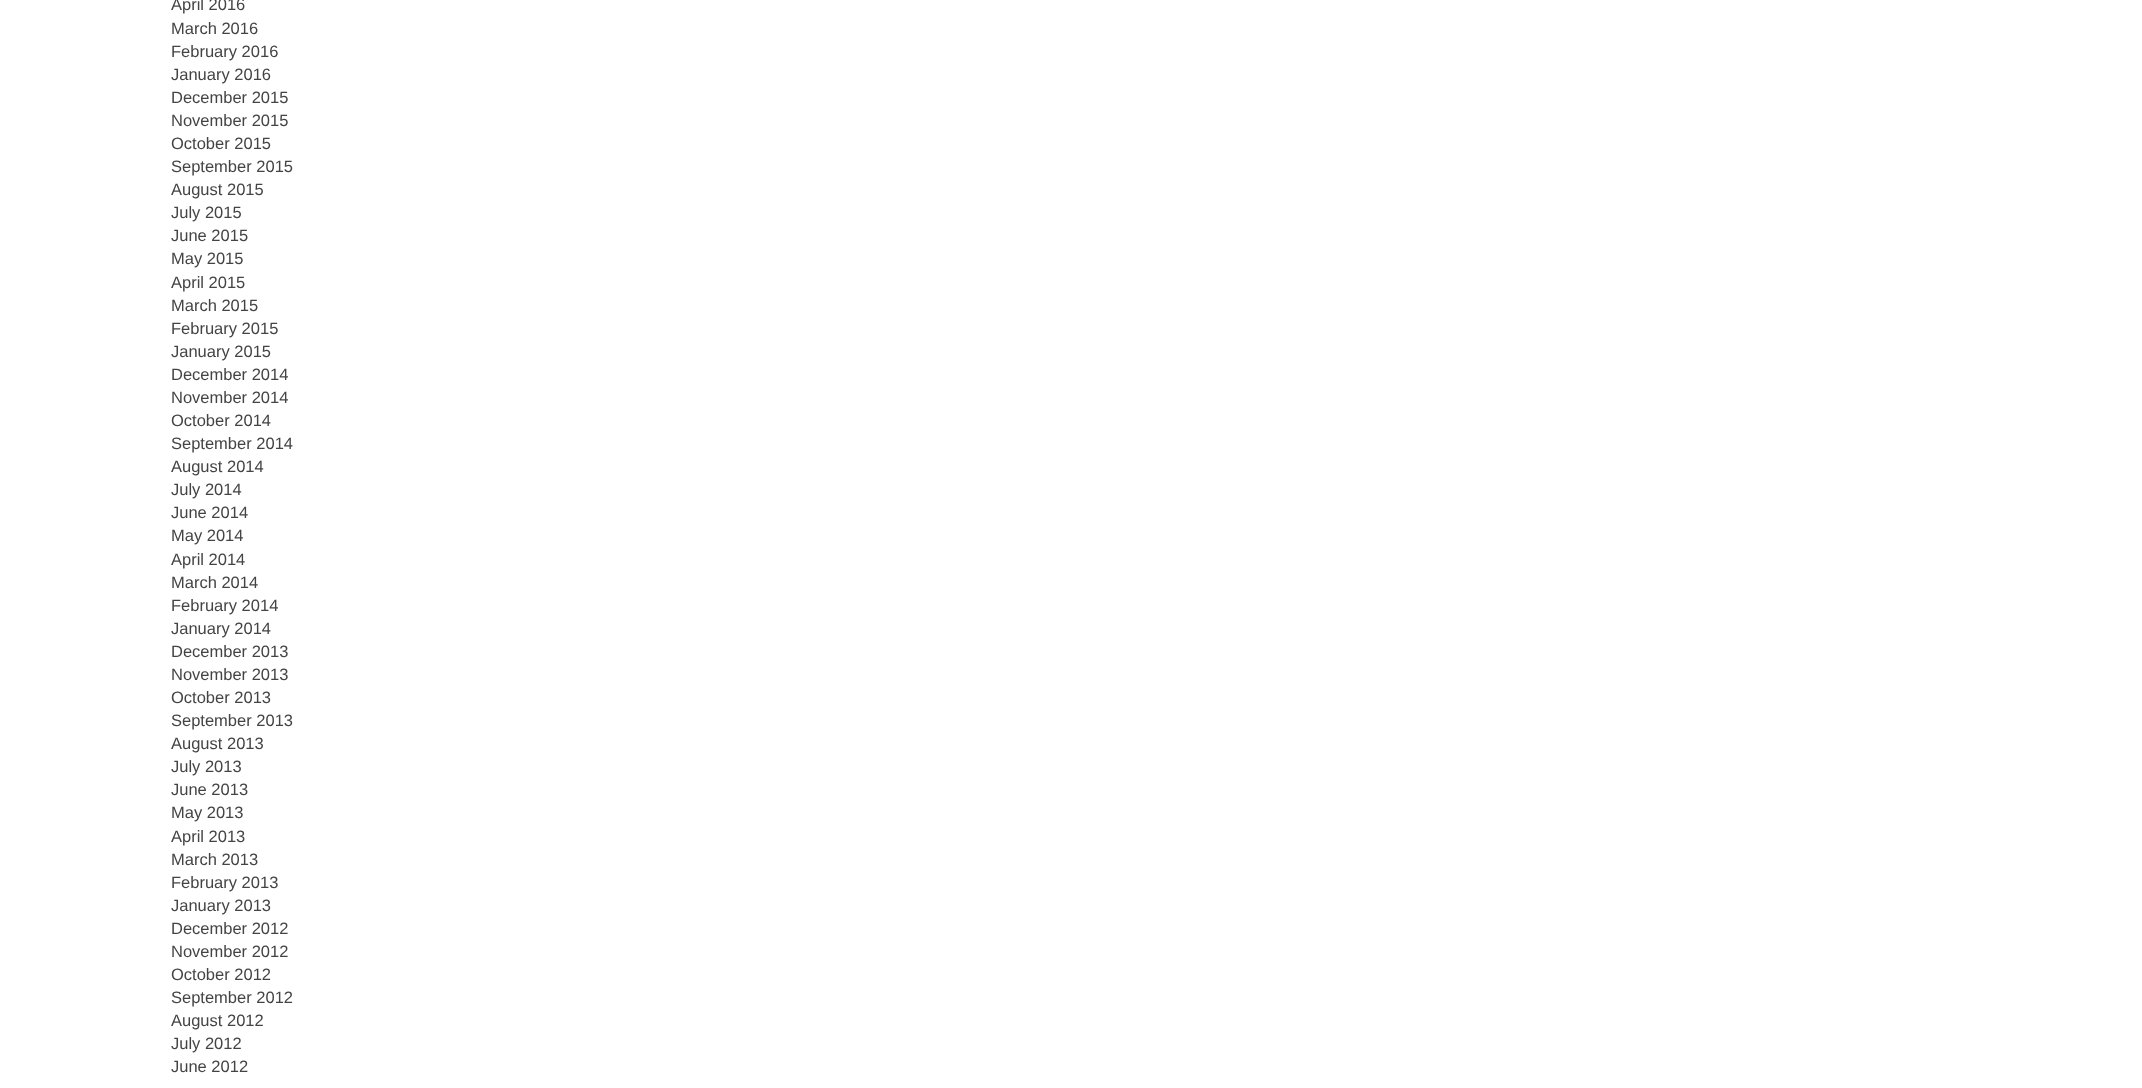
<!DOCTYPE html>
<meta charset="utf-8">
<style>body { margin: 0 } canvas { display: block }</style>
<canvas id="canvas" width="2142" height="1088"></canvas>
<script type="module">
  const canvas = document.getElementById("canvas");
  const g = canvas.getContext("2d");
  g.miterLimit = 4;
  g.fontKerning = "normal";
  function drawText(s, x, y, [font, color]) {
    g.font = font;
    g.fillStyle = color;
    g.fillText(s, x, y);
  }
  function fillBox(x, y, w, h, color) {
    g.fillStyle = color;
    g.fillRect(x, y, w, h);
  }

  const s1 = ["16.5px Liberation Sans", "#444444"];

  fillBox(0, 0, 2142, 1088, "#FFFFFF");
  drawText("April 2016", 171, 10, s1);
  drawText("March 2016", 171, 34, s1);
  drawText("February 2016", 171, 57, s1);
  drawText("January 2016", 171, 80, s1);
  drawText("December 2015", 171, 103, s1);
  drawText("November 2015", 171, 126, s1);
  drawText("October 2015", 171, 149, s1);
  drawText("September 2015", 171, 172, s1);
  drawText("August 2015", 171, 195, s1);
  drawText("July 2015", 171, 218, s1);
  drawText("June 2015", 171, 241, s1);
  drawText("May 2015", 171, 264, s1);
  drawText("April 2015", 171, 288, s1);
  drawText("March 2015", 171, 311, s1);
  drawText("February 2015", 171, 334, s1);
  drawText("January 2015", 171, 357, s1);
  drawText("December 2014", 171, 380, s1);
  drawText("November 2014", 171, 403, s1);
  drawText("October 2014", 171, 426, s1);
  drawText("September 2014", 171, 449, s1);
  drawText("August 2014", 171, 472, s1);
  drawText("July 2014", 171, 495, s1);
  drawText("June 2014", 171, 518, s1);
  drawText("May 2014", 171, 541, s1);
  drawText("April 2014", 171, 565, s1);
  drawText("March 2014", 171, 588, s1);
  drawText("February 2014", 171, 611, s1);
  drawText("January 2014", 171, 634, s1);
  drawText("December 2013", 171, 657, s1);
  drawText("November 2013", 171, 680, s1);
  drawText("October 2013", 171, 703, s1);
  drawText("September 2013", 171, 726, s1);
  drawText("August 2013", 171, 749, s1);
  drawText("July 2013", 171, 772, s1);
  drawText("June 2013", 171, 795, s1);
  drawText("May 2013", 171, 818, s1);
  drawText("April 2013", 171, 842, s1);
  drawText("March 2013", 171, 865, s1);
  drawText("February 2013", 171, 888, s1);
  drawText("January 2013", 171, 911, s1);
  drawText("December 2012", 171, 934, s1);
  drawText("November 2012", 171, 957, s1);
  drawText("October 2012", 171, 980, s1);
  drawText("September 2012", 171, 1003, s1);
  drawText("August 2012", 171, 1026, s1);
  drawText("July 2012", 171, 1049, s1);
  drawText("June 2012", 171, 1072, s1);
</script>
